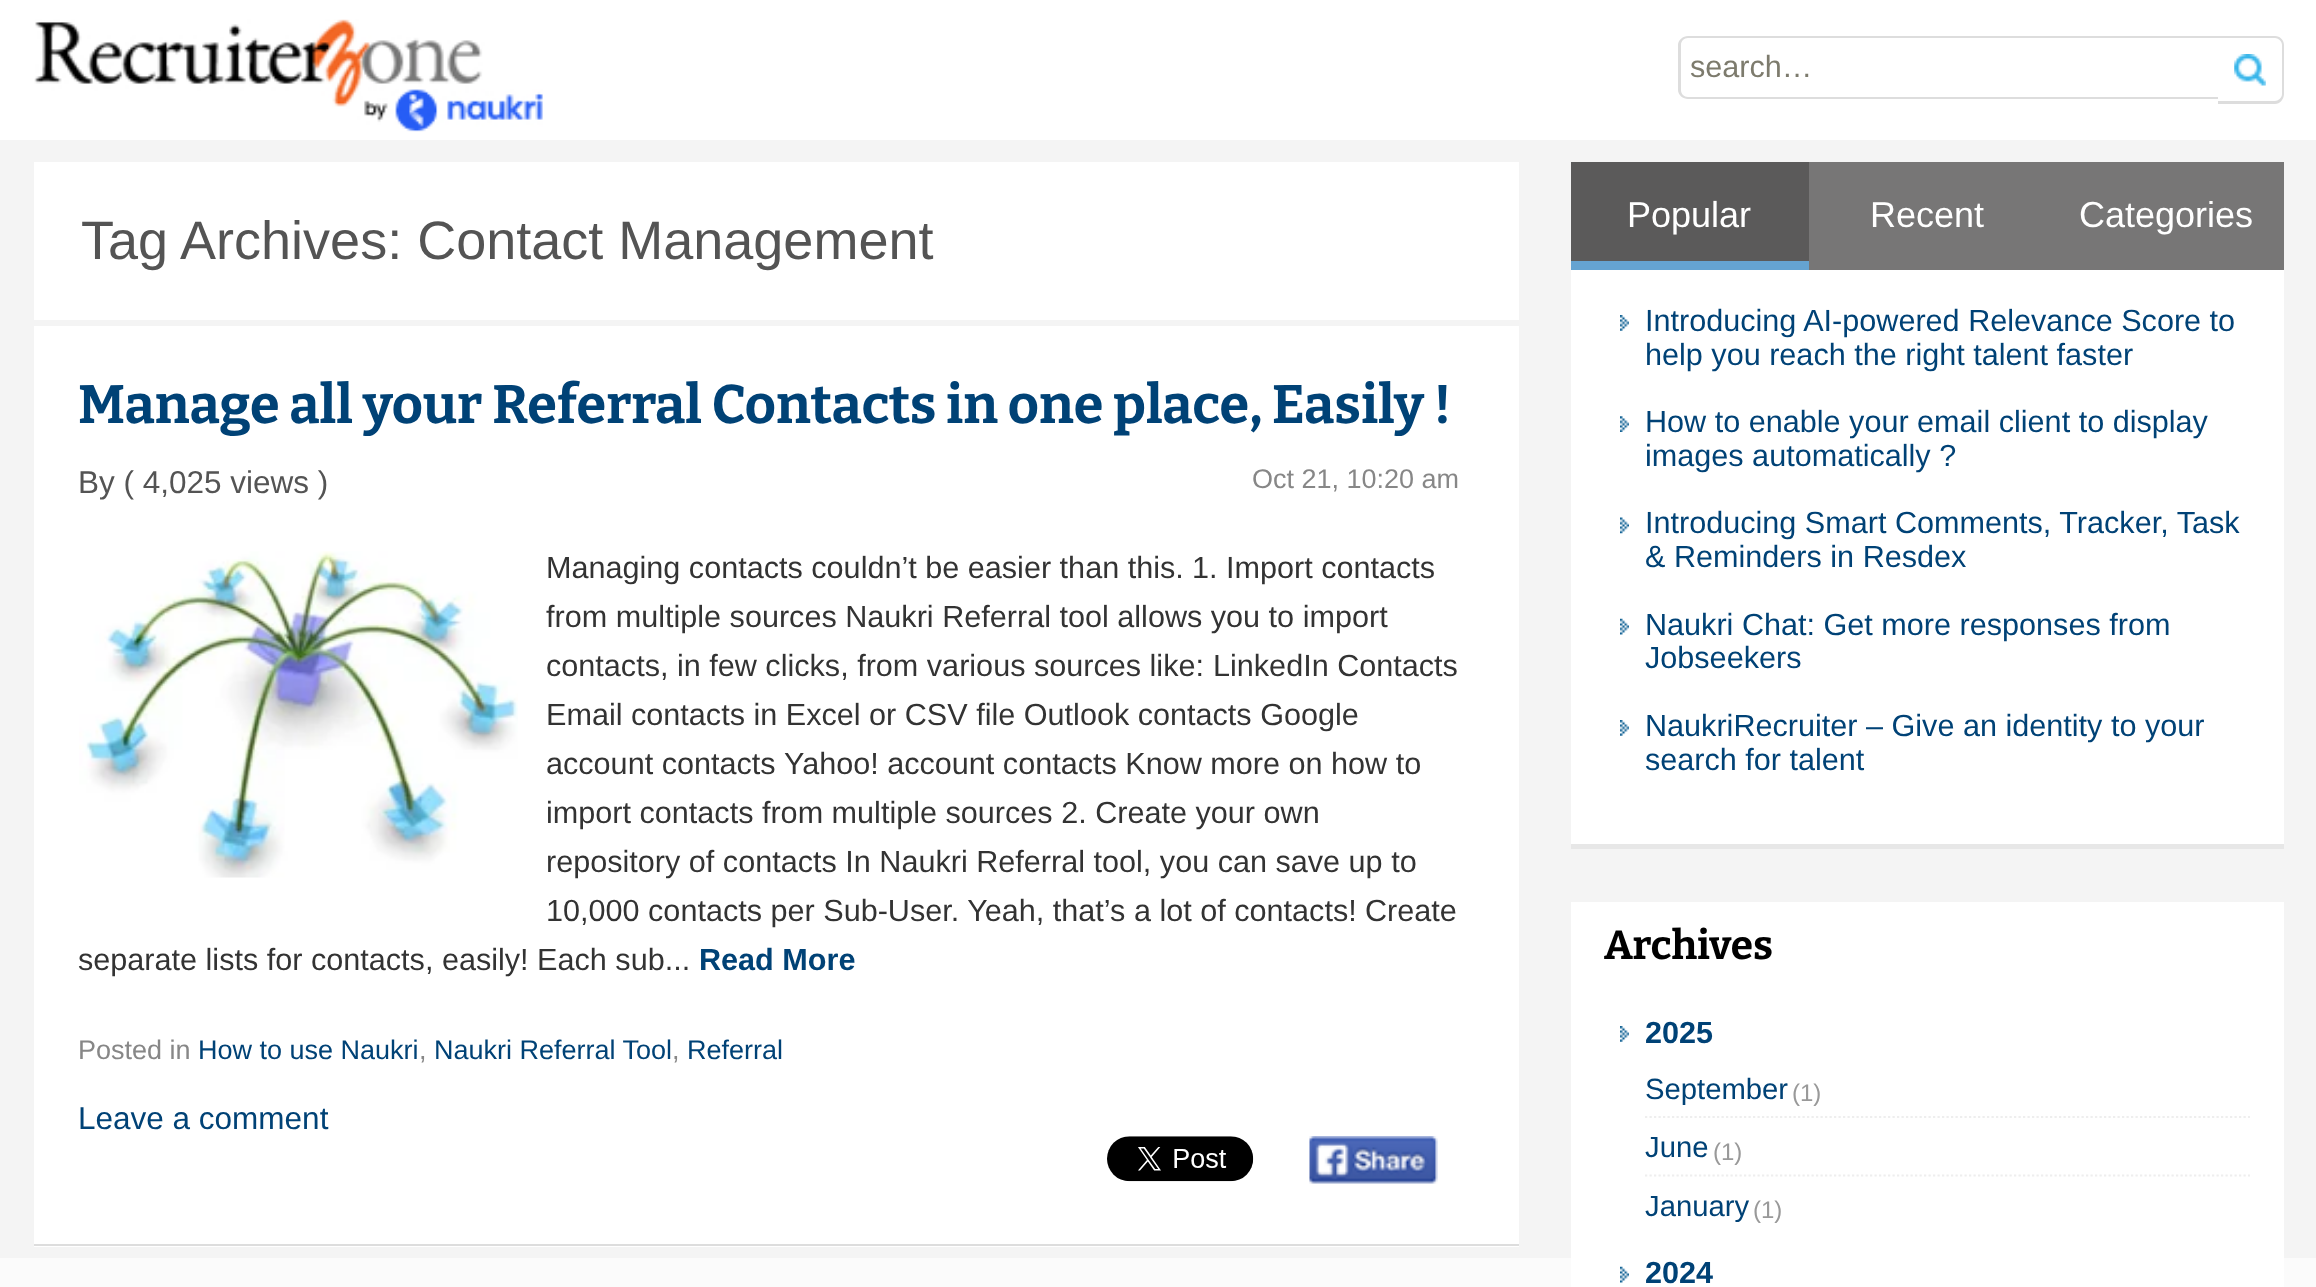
<!DOCTYPE html>
<meta charset="utf-8">
<style>body { margin: 0 } canvas { display: block }</style>
<canvas id="canvas" width="2316" height="1287"></canvas>
<script type="module">
  const canvas = document.getElementById("canvas");
  const g = canvas.getContext("2d");
  g.miterLimit = 4;
  g.fontKerning = "normal";
  function drawText(s, x, y, [font, color]) {
    g.font = font;
    g.fillStyle = color;
    g.fillText(s, x, y);
  }
  function fillBox(x, y, w, h, color) {
    g.fillStyle = color;
    g.fillRect(x, y, w, h);
  }
  async function drawPicture(src, x, y, w, h) {
    const img = new Image();
    img.src = src;
    await img.decode();
    g.drawImage(img, x, y, w, h);
  }

  const s1 = ["30.6px Liberation Sans", "#7D7B6D"];
  const s2 = ["54px Liberation Sans", "#545454"];
  const s3 = ["bold 54px Bitter", "#004276"];
  const s4 = ["31.5px Liberation Sans", "#545454"];
  const s5 = ["27px Liberation Sans", "#878787"];
  const s6 = ["30.6px Liberation Sans", "#333333"];
  const s7 = ["bold 30.6px Liberation Sans", "#004276"];
  const s8 = ["27px Liberation Sans", "#004276"];
  const s9 = ["31.5px Liberation Sans", "#004276"];
  const s10 = ["36px Liberation Sans", "#FFFFFF"];
  const s11 = ["30.6px Liberation Sans", "#004276"];
  const s12 = ["bold 40.5px Bitter", "#000000"];
  const s13 = ["29.25px Liberation Sans", "#004276"];
  const s14 = ["24px Liberation Sans", "#999999"];

  fillBox(0, 0, 2316, 1287, "#F4F4F4");
  fillBox(0, 0, 2316, 140, "#FFFFFF");
  await drawPicture("pic1.png", 34, 19, 509, 113);
  g.fillStyle = "#DDDDDD";
  g.beginPath();
  g.moveTo(1688, 36);
  g.lineTo(2218, 36);
  g.lineTo(2218, 99);
  g.lineTo(1688, 99);
  g.bezierCurveTo(1683, 99, 1678, 95, 1678, 90);
  g.lineTo(1678, 45);
  g.bezierCurveTo(1678, 40, 1683, 36, 1688, 36);
  g.closePath();
  g.moveTo(1688, 38);
  g.lineTo(2218, 38);
  g.lineTo(2218, 97);
  g.lineTo(1688, 97);
  g.bezierCurveTo(1684, 97, 1681, 94, 1681, 90);
  g.lineTo(1681, 45);
  g.bezierCurveTo(1681, 41, 1684, 38, 1688, 38);
  g.closePath();
  g.fill("evenodd");
  drawText("search…", 1690, 77, s1);
  g.fillStyle = "#DDDDDD";
  g.beginPath();
  g.moveTo(2218, 36);
  g.lineTo(2275, 36);
  g.bezierCurveTo(2280, 36, 2284, 40, 2284, 45);
  g.lineTo(2284, 94);
  g.bezierCurveTo(2284, 99, 2280, 104, 2275, 104);
  g.lineTo(2218, 104);
  g.closePath();
  g.moveTo(2218, 38);
  g.lineTo(2275, 38);
  g.bezierCurveTo(2278, 38, 2282, 41, 2282, 45);
  g.lineTo(2282, 94);
  g.bezierCurveTo(2282, 98, 2278, 101, 2275, 101);
  g.lineTo(2218, 101);
  g.closePath();
  g.fill("evenodd");
  await drawPicture("pic2.png", 2234, 54, 32, 32);
  fillBox(34, 162, 1485, 158, "#FFFFFF");
  drawText("Tag Archives: Contact Management", 81, 259, s2);
  fillBox(34, 326, 1485, 921, "#FFFFFF");
  fillBox(34, 1244, 1485, 2, "#DDDDDD");
  drawText("Manage all your Referral Contacts in one place, Easily !", 78, 423, s3);
  drawText("By ( 4,025 views )", 78, 493, s4);
  drawText("Oct 21, 10:20 am", 1252, 488, s5);
  await drawPicture("pic3.png", 79, 551, 439, 327);
  drawText("Managing contacts couldn’t be easier than this.", 546, 578, s6);
  drawText("1. Import contacts", 1192, 578, s6);
  drawText("from multiple sources Naukri Referral tool allows you to import", 546, 627, s6);
  drawText("contacts, in few clicks, from various sources like:", 546, 676, s6);
  drawText("LinkedIn Contacts", 1213, 676, s6);
  drawText("Email contacts in Excel or CSV file Outlook contacts Google", 546, 725, s6);
  drawText("account contacts", 546, 774, s6);
  drawText("Yahoo! account contacts Know more on how to", 784, 774, s6);
  drawText("import contacts from multiple sources 2. Create your own", 546, 823, s6);
  drawText("repository of contacts In Naukri Referral tool, you can save up to", 546, 872, s6);
  drawText("10,000 contacts per Sub-User. Yeah, that’s a lot of contacts!", 546, 921, s6);
  drawText("Create", 1365, 921, s6);
  drawText("separate lists for contacts, easily! Each sub...", 78, 970, s6);
  drawText("Read More", 699, 970, s7);
  drawText("Posted in", 78, 1059, s5);
  drawText("How to use Naukri", 198, 1059, s8);
  drawText(",", 419, 1059, s5);
  drawText("Naukri Referral Tool", 434, 1059, s8);
  drawText(",", 672, 1059, s5);
  drawText("Referral", 687, 1059, s8);
  drawText("Leave a comment", 78, 1129, s9);
  await drawPicture("pic4.png", 1107, 1136, 147, 46);
  await drawPicture("pic5.png", 1309, 1136, 129, 48);
  fillBox(1571, 270, 713, 574, "#FFFFFF");
  fillBox(1571, 844, 713, 5, "#E7E7E7");
  fillBox(1571, 162, 238, 99, "#5B5A5A");
  fillBox(1571, 261, 238, 9, "#65A3D1");
  drawText("Popular", 1627, 227, s10);
  fillBox(1809, 162, 475, 108, "#777676");
  drawText("Recent", 1870, 227, s10);
  drawText("Categories", 2079, 227, s10);
  await drawPicture("pic6.png", 1620, 315, 9, 16);
  drawText("Introducing AI-powered Relevance Score to", 1645, 331, s11);
  drawText("help you reach the right talent faster", 1645, 365, s11);
  await drawPicture("pic7.png", 1620, 416, 9, 16);
  drawText("How to enable your email client to display", 1645, 432, s11);
  drawText("images automatically ?", 1645, 466, s11);
  await drawPicture("pic8.png", 1620, 517, 9, 17);
  drawText("Introducing Smart Comments, Tracker, Task", 1645, 533, s11);
  drawText("& Reminders in Resdex", 1645, 567, s11);
  await drawPicture("pic9.png", 1620, 618, 9, 17);
  drawText("Naukri Chat: Get more responses from", 1645, 635, s11);
  drawText("Jobseekers", 1645, 668, s11);
  await drawPicture("pic6.png", 1620, 720, 9, 16);
  drawText("NaukriRecruiter – Give an identity to your", 1645, 736, s11);
  drawText("search for talent", 1645, 770, s11);
  fillBox(0, 1258, 2316, 29, "#FBFBFB");
  fillBox(1571, 902, 713, 385, "#FFFFFF");
  drawText("Archives", 1604, 959, s12);
  await drawPicture("pic6.png", 1620, 1026, 9, 16);
  drawText("2025", 1645, 1043, s7);
  g.beginPath();
  g.moveTo(1645, 1117);
  g.lineTo(2250, 1117);
  g.strokeStyle = "#EEEEEE";
  g.lineWidth = 2.2;
  g.setLineDash([2.25, 2.25]);
  g.stroke();
  drawText("September", 1645, 1099, s13);
  drawText("(1)", 1792, 1101, s14);
  g.beginPath();
  g.moveTo(1645, 1175.5);
  g.lineTo(2250, 1175.5);
  g.stroke();
  drawText("June", 1645, 1157, s13);
  drawText("(1)", 1713, 1160, s14);
  drawText("January", 1645, 1216, s13);
  drawText("(1)", 1753, 1218, s14);
  await drawPicture("pic9.png", 1620, 1266, 9, 17);
  drawText("2024", 1645, 1283, s7);
</script>
